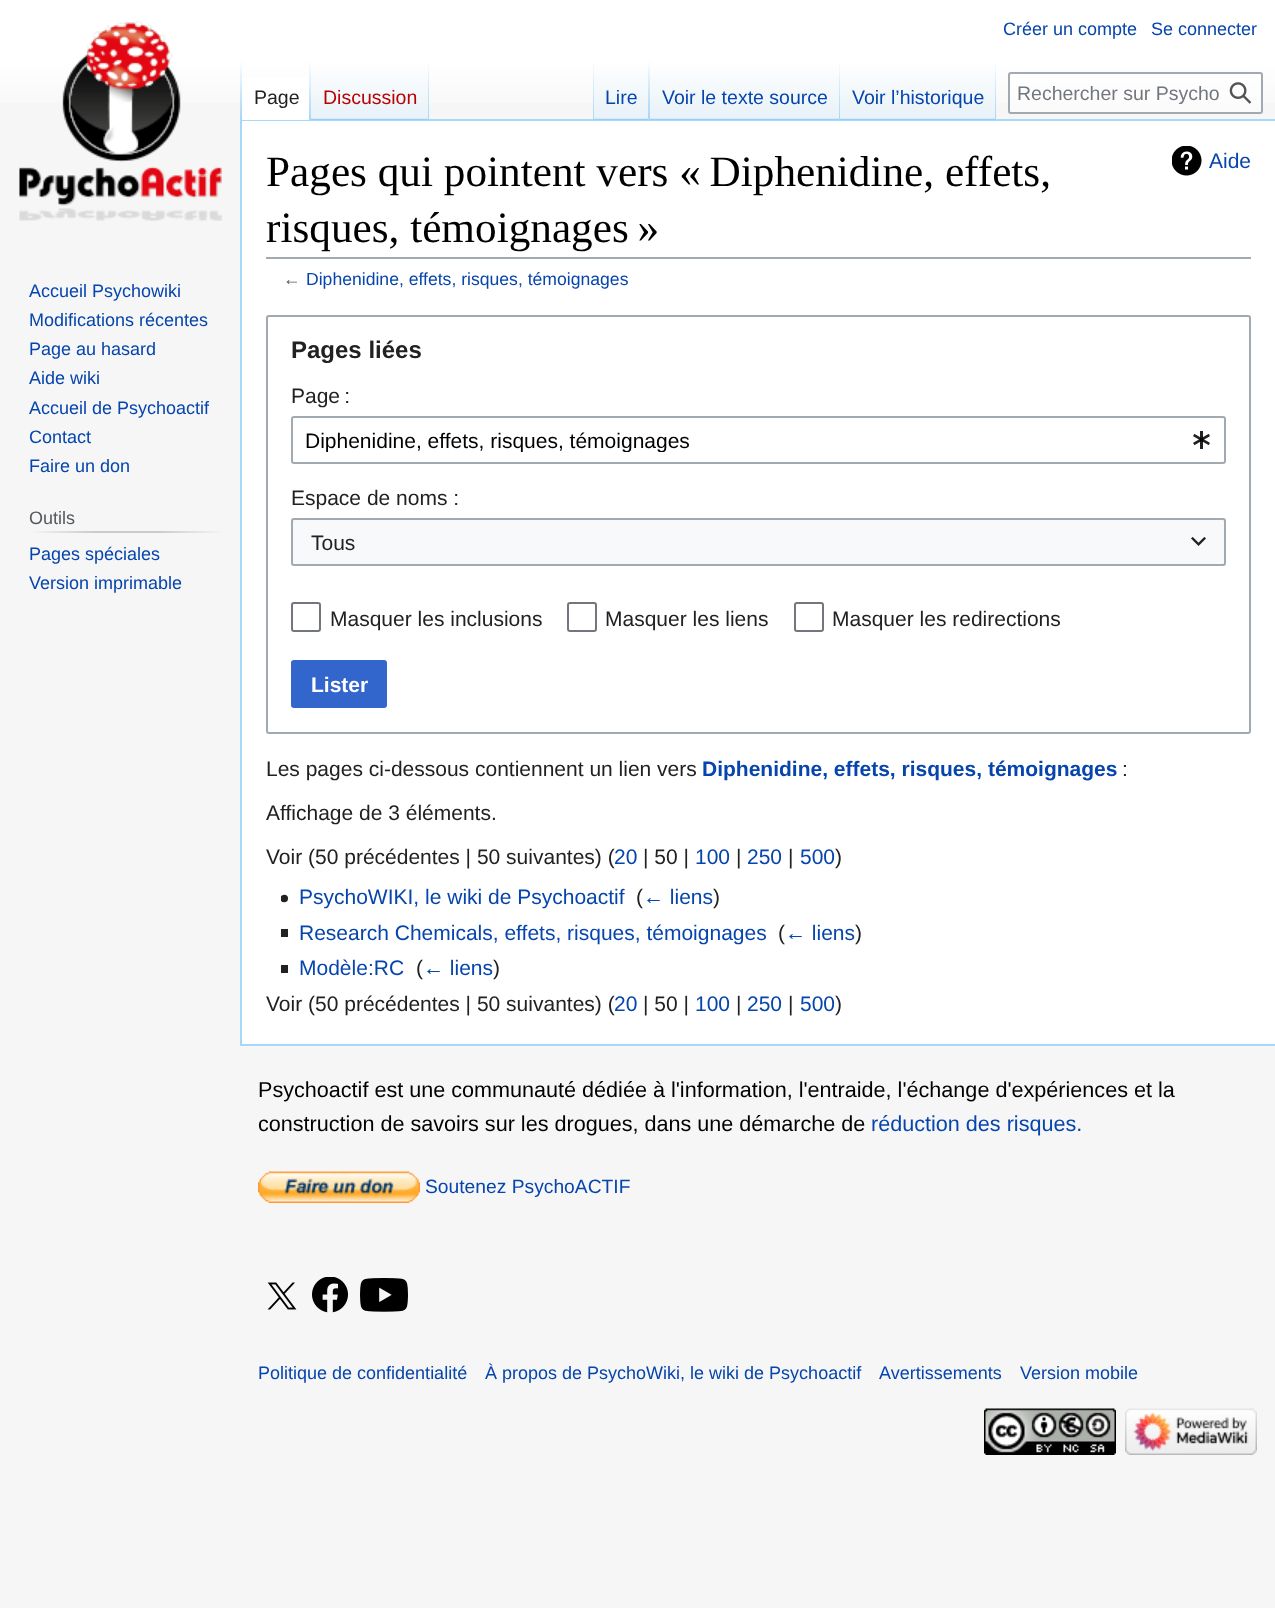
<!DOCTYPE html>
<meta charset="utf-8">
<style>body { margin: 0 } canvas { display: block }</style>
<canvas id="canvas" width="1275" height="1608"></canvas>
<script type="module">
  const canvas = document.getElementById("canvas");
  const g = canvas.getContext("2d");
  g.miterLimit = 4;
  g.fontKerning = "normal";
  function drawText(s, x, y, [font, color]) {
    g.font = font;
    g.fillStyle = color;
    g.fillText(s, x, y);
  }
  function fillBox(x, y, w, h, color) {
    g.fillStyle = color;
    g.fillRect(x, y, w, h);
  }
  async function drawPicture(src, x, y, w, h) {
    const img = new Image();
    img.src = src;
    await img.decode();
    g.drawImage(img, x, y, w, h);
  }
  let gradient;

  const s1 = ["18px Liberation Sans", "#0645AD"];
  const s2 = ["19.5px Liberation Sans", "#202122"];
  const s3 = ["19.5px Liberation Sans", "#BA0000"];
  const s4 = ["19.5px Liberation Sans", "#0645AD"];
  const s5 = ["19.5px Liberation Sans", "#72777D"];
  const s6 = ["18px Liberation Sans", "#54595D"];
  const s7 = ["43.25px Liberation Serif", "#000000"];
  const s8 = ["21px Liberation Sans", "#0645AD"];
  const s9 = ["17.6px Liberation Sans", "#54595D"];
  const s10 = ["17.6px Liberation Sans", "#0645AD"];
  const s11 = ["bold 24px Liberation Sans", "#202122"];
  const s12 = ["21px Liberation Sans", "#202122"];
  const s13 = ["21px Liberation Sans", "#000000"];
  const s14 = ["bold 21px Liberation Sans", "#FFFFFF"];
  const s15 = ["bold 21px Liberation Sans", "#0645AD"];
  const s16 = ["21.6px Liberation Sans", "#000000"];
  const s17 = ["21.6px Liberation Sans", "#0645AD"];
  const s18 = ["19.25px Liberation Sans", "#0645AD"];

  fillBox(0, 0, 1275, 1608, "#F6F6F6");
  gradient = g.createLinearGradient(638, 0, 638, 120);
  gradient.addColorStop(0.5, "#FFFFFF");
  gradient.addColorStop(1, "#F6F6F6");
  g.fillStyle = gradient;
  g.fillRect(0, 0, 1275, 103);
  drawText("Créer un compte", 1003, 35, s1);
  drawText("Se connecter", 1151, 35, s1);
  fillBox(240, 119, 1035, 2, "#A7D7F9");
  fillBox(240, 1044, 1035, 2, "#A7D7F9");
  fillBox(240, 119, 2, 927, "#A7D7F9");
  gradient = g.createLinearGradient(241, 60, 241, 120);
  gradient.addColorStop(0, "rgba(167, 215, 249, 0)");
  gradient.addColorStop(1, "#A7D7F9");
  g.fillStyle = gradient;
  g.fillRect(240, 60, 2, 60);
  fillBox(242, 77, 67, 43, "#FFFFFF");
  gradient = g.createLinearGradient(310, 60, 310, 120);
  gradient.addColorStop(0, "#FFFFFF");
  gradient.addColorStop(1, "#A7D7F9");
  g.fillStyle = gradient;
  g.fillRect(309, 60, 2, 60);
  drawText("Page", 254, 104, s2);
  gradient = g.createLinearGradient(370, 120, 370, 60);
  gradient.addColorStop(0, "#77C1F6");
  gradient.addColorStop(0.03, "#E8F2F8");
  gradient.addColorStop(1, "#FFFFFF");
  g.fillStyle = gradient;
  g.fillRect(311, 69, 118, 51);
  gradient = g.createLinearGradient(428, 60, 428, 120);
  gradient.addColorStop(0, "rgba(167, 215, 249, 0)");
  gradient.addColorStop(1, "#A7D7F9");
  g.fillStyle = gradient;
  g.fillRect(428, 60, 1, 60);
  drawText("Discussion", 323, 104, s3);
  gradient = g.createLinearGradient(593, 60, 593, 120);
  gradient.addColorStop(0, "rgba(167, 215, 249, 0)");
  gradient.addColorStop(1, "#A7D7F9");
  g.fillStyle = gradient;
  g.fillRect(593, 60, 1, 60);
  gradient = g.createLinearGradient(622, 120, 622, 60);
  gradient.addColorStop(0, "#77C1F6");
  gradient.addColorStop(0.03, "#E8F2F8");
  gradient.addColorStop(1, "#FFFFFF");
  g.fillStyle = gradient;
  g.fillRect(594, 69, 56, 51);
  gradient = g.createLinearGradient(649, 60, 649, 120);
  gradient.addColorStop(0, "rgba(167, 215, 249, 0)");
  gradient.addColorStop(1, "#A7D7F9");
  g.fillStyle = gradient;
  g.fillRect(648, 60, 2, 60);
  drawText("Lire", 605, 104, s4);
  gradient = g.createLinearGradient(745, 120, 745, 60);
  gradient.addColorStop(0, "#77C1F6");
  gradient.addColorStop(0.03, "#E8F2F8");
  gradient.addColorStop(1, "#FFFFFF");
  g.fillStyle = gradient;
  g.fillRect(650, 69, 190, 51);
  gradient = g.createLinearGradient(839, 60, 839, 120);
  gradient.addColorStop(0, "rgba(167, 215, 249, 0)");
  gradient.addColorStop(1, "#A7D7F9");
  g.fillStyle = gradient;
  g.fillRect(839, 60, 1, 60);
  drawText("Voir le texte source", 662, 104, s4);
  gradient = g.createLinearGradient(918, 120, 918, 60);
  gradient.addColorStop(0, "#77C1F6");
  gradient.addColorStop(0.03, "#E8F2F8");
  gradient.addColorStop(1, "#FFFFFF");
  g.fillStyle = gradient;
  g.fillRect(840, 69, 156, 51);
  gradient = g.createLinearGradient(995, 60, 995, 120);
  gradient.addColorStop(0, "rgba(167, 215, 249, 0)");
  gradient.addColorStop(1, "#A7D7F9");
  g.fillStyle = gradient;
  g.fillRect(995, 60, 1, 60);
  drawText("Voir l’historique", 852, 104, s4);
  g.fillStyle = "rgba(255, 255, 255, 0.5)";
  g.beginPath();
  g.roundRect(1009, 73, 253, 40, 2);
  g.fill();
  g.strokeStyle = "#A2A9B1";
  g.lineWidth = 2;
  g.stroke();
  drawText("Rechercher sur Psycho", 1017, 100, s5);
  await drawPicture("pic1.png", 1229, 82, 23, 22);
  await drawPicture("pic2.png", 19, 21, 203, 200);
  drawText("Accueil Psychowiki", 29, 297, s1);
  drawText("Modifications récentes", 29, 326, s1);
  drawText("Page au hasard", 29, 355, s1);
  drawText("Aide wiki", 29, 384, s1);
  drawText("Accueil de Psychoactif", 29, 414, s1);
  drawText("Contact", 29, 443, s1);
  drawText("Faire un don", 29, 472, s1);
  gradient = g.createLinearGradient(29, 532, 225, 532);
  gradient.addColorStop(0, "#F6F6F6");
  gradient.addColorStop(0.33, "#C8CCD1");
  gradient.addColorStop(0.66, "#C8CCD1");
  gradient.addColorStop(1, "#F6F6F6");
  g.fillStyle = gradient;
  g.fillRect(29, 531, 196, 2);
  drawText("Outils", 29, 524, s6);
  drawText("Pages spéciales", 29, 560, s1);
  drawText("Version imprimable", 29, 589, s1);
  fillBox(242, 121, 1033, 923, "#FFFFFF");
  fillBox(266, 257, 985, 2, "#A2A9B1");
  drawText("Pages qui pointent vers « Diphenidine, effets,", 266, 186, s7);
  drawText("risques, témoignages »", 266, 242, s7);
  await drawPicture("pic3.png", 1172, 146, 30, 30);
  drawText("Aide", 1209, 168, s8);
  drawText("←", 283, 285, s9);
  drawText("Diphenidine, effets, risques, témoignages", 306, 285, s10);
  g.beginPath();
  g.roundRect(267, 316, 983, 417, 2);
  g.stroke();
  drawText("Pages liées", 291, 358, s11);
  drawText("Page :", 291, 403, s12);
  g.beginPath();
  g.roundRect(292, 417, 933, 46, 2);
  g.stroke();
  g.save();
  g.beginPath();
  g.rect(305, 428, 877, 24);
  g.clip();
  drawText("Diphenidine, effets, risques, témoignages", 305, 448, s13);
  g.restore();
  await drawPicture("pic4.png", 1193, 431, 17, 18);
  drawText("Espace de noms :", 291, 505, s12);
  fillBox(291, 518, 935, 48, "#F8F9FA");
  g.beginPath();
  g.roundRect(292, 519, 933, 46, 2);
  g.stroke();
  drawText("Tous", 311, 550, s12);
  await drawPicture("pic5.png", 1191, 537, 15, 9);
  g.beginPath();
  g.roundRect(292, 603, 28, 28, 2);
  g.strokeStyle = "#72777D";
  g.stroke();
  drawText("Masquer les inclusions", 330, 626, s12);
  g.beginPath();
  g.roundRect(568, 603, 28, 28, 2);
  g.stroke();
  drawText("Masquer les liens", 605, 626, s12);
  g.beginPath();
  g.roundRect(795, 603, 28, 28, 2);
  g.stroke();
  drawText("Masquer les redirections", 832, 626, s12);
  g.fillStyle = "#3366CC";
  g.beginPath();
  g.roundRect(292, 661, 94, 46, 2);
  g.fill();
  g.strokeStyle = "#3366CC";
  g.stroke();
  drawText("Lister", 311, 692, s14);
  drawText("Les pages ci-dessous contiennent un lien vers", 266, 776, s12);
  drawText("Diphenidine, effets, risques, témoignages", 702, 776, s15);
  drawText(":", 1122, 776, s12);
  drawText("Affichage de 3 éléments.", 266, 820, s12);
  drawText("Voir (50 précédentes | 50 suivantes) (", 266, 864, s12);
  drawText("20", 614, 864, s8);
  drawText("| 50 |", 643, 864, s12);
  drawText("100", 695, 864, s8);
  drawText("|", 736, 864, s12);
  drawText("250", 747, 864, s8);
  drawText("|", 788, 864, s12);
  drawText("500", 800, 864, s8);
  drawText(")", 835, 864, s12);
  await drawPicture("pic6.png", 281, 894, 7, 9);
  drawText("PsychoWIKI, le wiki de Psychoactif", 299, 904, s8);
  drawText("(", 636, 904, s12);
  drawText("← liens", 643, 904, s8);
  drawText(")", 713, 904, s12);
  fillBox(281, 929, 7, 8, "#202122");
  drawText("Research Chemicals, effets, risques, témoignages", 299, 940, s8);
  drawText("(", 778, 940, s12);
  drawText("← liens", 785, 940, s8);
  drawText(")", 855, 940, s12);
  fillBox(281, 965, 7, 8, "#202122");
  drawText("Modèle:RC", 299, 975, s8);
  drawText("(", 416, 975, s12);
  drawText("← liens", 423, 975, s8);
  drawText(")", 493, 975, s12);
  drawText("Voir (50 précédentes | 50 suivantes) (", 266, 1011, s12);
  drawText("20", 614, 1011, s8);
  drawText("| 50 |", 643, 1011, s12);
  drawText("100", 695, 1011, s8);
  drawText("|", 736, 1011, s12);
  drawText("250", 747, 1011, s8);
  drawText("|", 788, 1011, s12);
  drawText("500", 800, 1011, s8);
  drawText(")", 835, 1011, s12);
  drawText("Psychoactif est une communauté dédiée à l'information, l'entraide, l'échange d'expériences et la", 258, 1097, s16);
  drawText("construction de savoirs sur les drogues, dans une démarche de", 258, 1131, s16);
  drawText("réduction des risques.", 871, 1131, s17);
  await drawPicture("pic7.png", 258, 1171, 162, 32);
  drawText("Soutenez PsychoACTIF", 425, 1193, s18);
  await drawPicture("pic8.png", 267, 1282, 30, 28);
  await drawPicture("pic9.png", 312, 1277, 36, 36);
  await drawPicture("pic10.png", 360, 1278, 48, 34);
  drawText("Politique de confidentialité", 258, 1379, s1);
  drawText("À propos de PsychoWiki, le wiki de Psychoactif", 485, 1379, s1);
  drawText("Avertissements", 879, 1379, s1);
  drawText("Version mobile", 1020, 1379, s1);
  await drawPicture("pic11.png", 984, 1408, 132, 47);
  await drawPicture("pic12.png", 1125, 1408, 132, 47);
</script>
